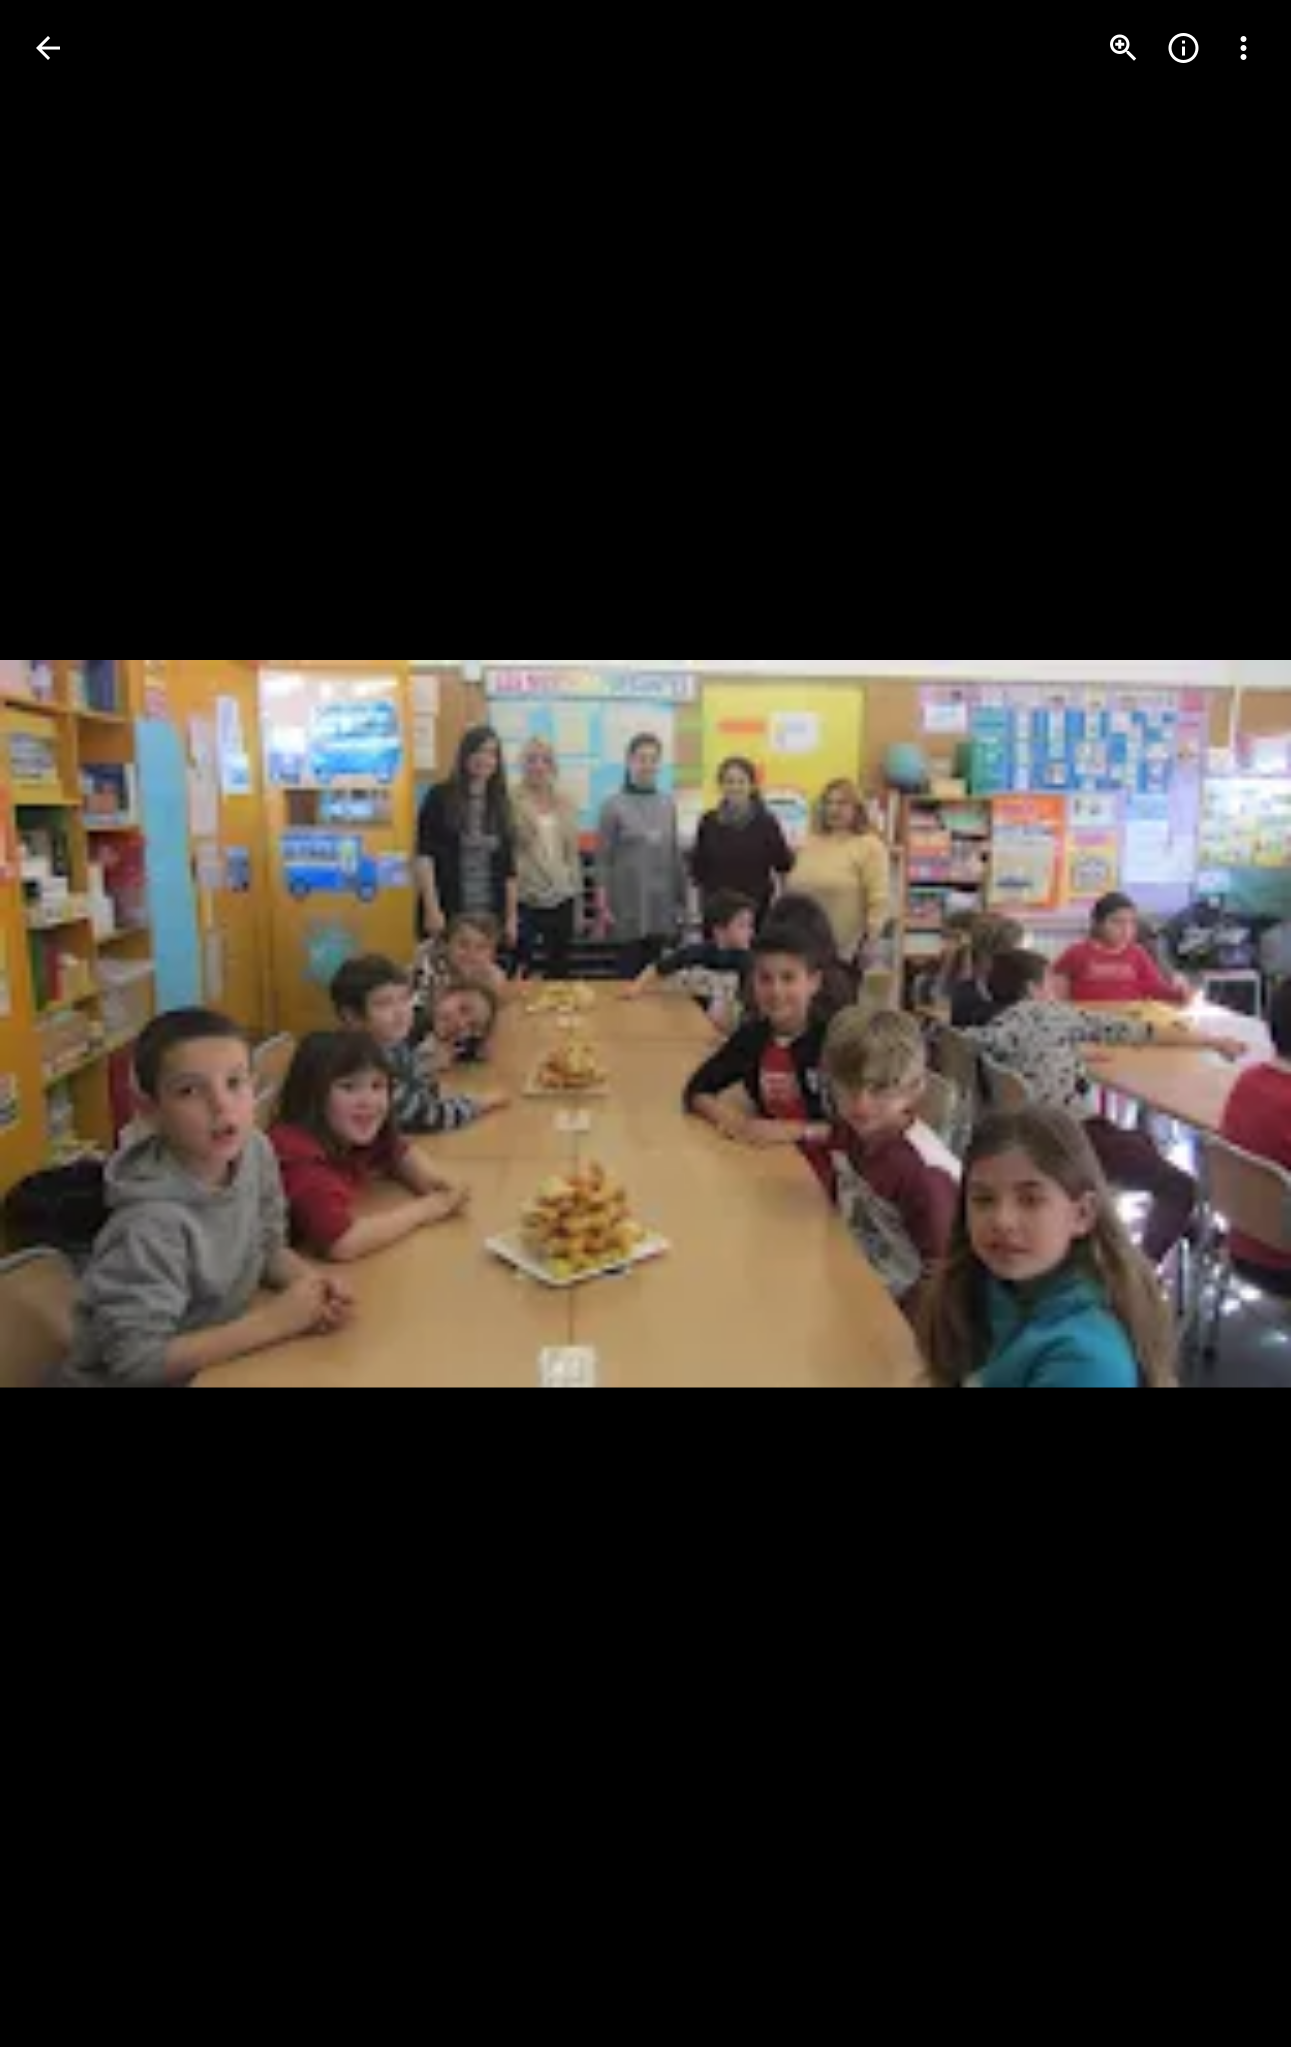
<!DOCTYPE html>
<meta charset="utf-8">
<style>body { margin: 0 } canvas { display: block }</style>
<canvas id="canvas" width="1291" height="2047"></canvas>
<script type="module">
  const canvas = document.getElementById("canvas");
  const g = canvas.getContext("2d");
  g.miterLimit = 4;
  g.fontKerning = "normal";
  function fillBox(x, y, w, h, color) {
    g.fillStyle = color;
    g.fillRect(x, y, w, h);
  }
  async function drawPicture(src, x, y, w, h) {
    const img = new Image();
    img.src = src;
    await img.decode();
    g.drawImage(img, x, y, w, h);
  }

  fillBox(0, 0, 1291, 2047, "#000000");
  await drawPicture("pic1.png", 36, 36, 24, 24);
  await drawPicture("pic2.png", 1110, 34, 27, 27);
  await drawPicture("pic3.png", 1168, 33, 31, 30);
  await drawPicture("pic4.png", 1240, 36, 7, 24);
  await drawPicture("pic5.png", 0, 660, 1291, 728);
</script>
